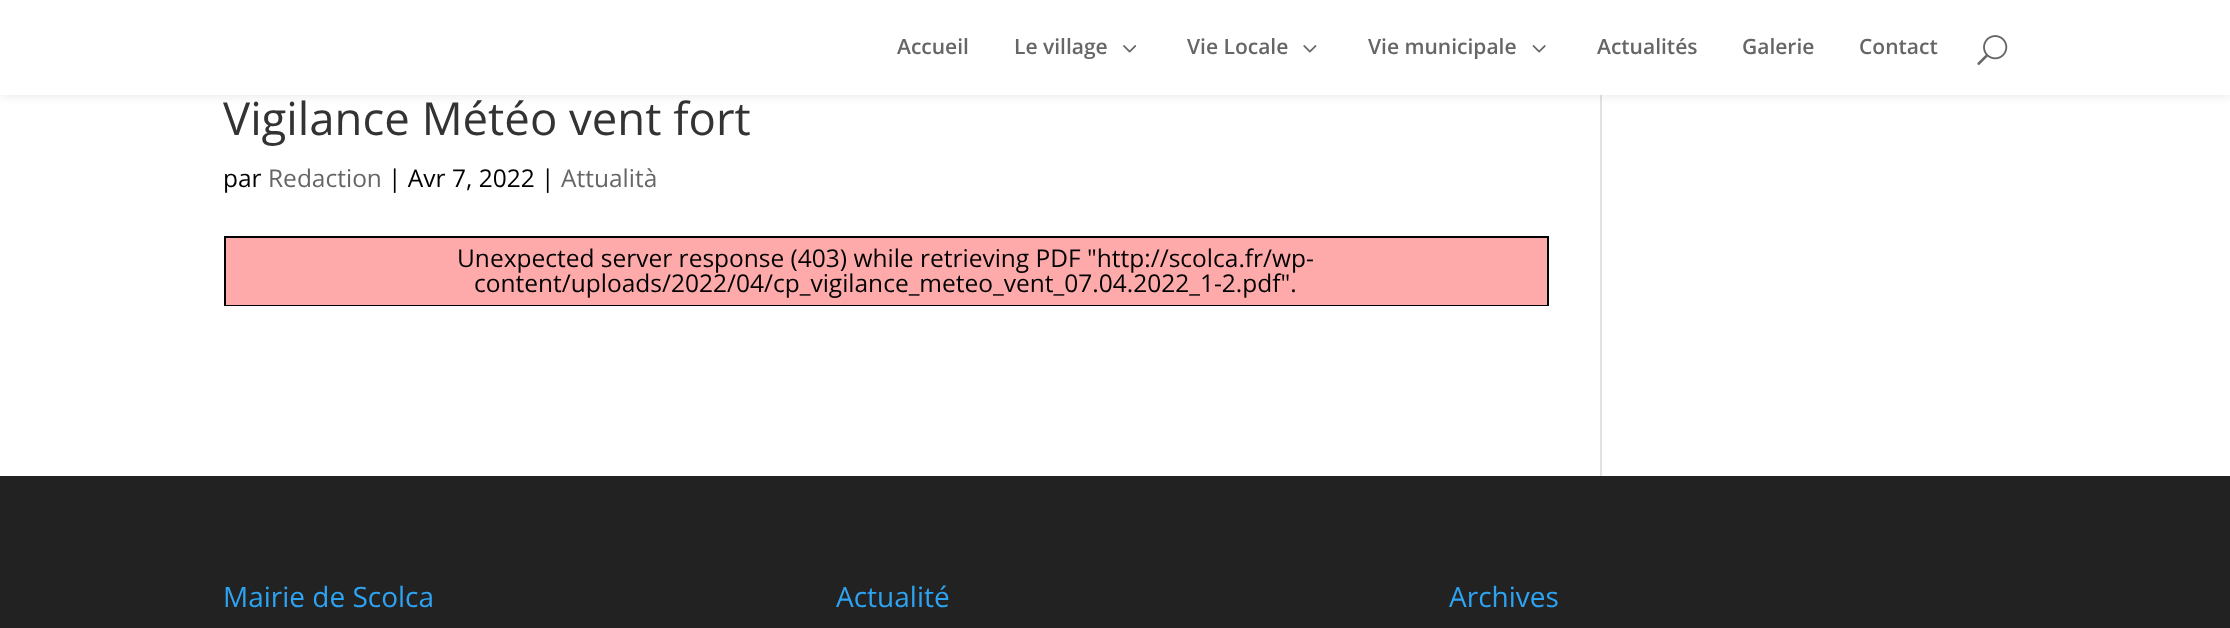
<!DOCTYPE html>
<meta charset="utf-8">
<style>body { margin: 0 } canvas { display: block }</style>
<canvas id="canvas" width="2230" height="628"></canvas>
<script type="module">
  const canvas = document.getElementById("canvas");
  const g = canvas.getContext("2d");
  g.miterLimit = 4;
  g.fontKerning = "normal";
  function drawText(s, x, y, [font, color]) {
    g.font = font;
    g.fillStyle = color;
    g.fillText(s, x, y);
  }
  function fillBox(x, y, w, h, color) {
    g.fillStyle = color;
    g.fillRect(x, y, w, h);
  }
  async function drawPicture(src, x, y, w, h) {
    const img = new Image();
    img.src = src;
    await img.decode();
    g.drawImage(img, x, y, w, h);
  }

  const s1 = ["600 21px Open Sans", "#666666"];
  const s2 = ["45.5px Open Sans", "#333333"];
  const s3 = ["24.5px Open Sans", "#000000"];
  const s4 = ["24.5px Open Sans", "#666666"];
  const s5 = ["28px Open Sans", "#2EA3F2"];

  fillBox(0, 0, 2230, 628, "#FFFFFF");
  fillBox(1600, 95, 2, 381, "#E2E2E2");
  g.fillStyle = "rgba(0, 0, 0, 0.1)";
  g.filter = "blur(6px)";
  g.beginPath();
  g.rect(0, 0, 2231, 95);
  g.fill();
  g.filter = "none";
  fillBox(0, 0, 2230, 95, "#FFFFFF");
  drawText("Accueil", 897, 54, s1);
  drawText("Le village", 1014, 54, s1);
  await drawPicture("pic1.png", 1123, 45, 14, 8);
  drawText("Vie Locale", 1187, 54, s1);
  await drawPicture("pic2.png", 1303, 45, 14, 8);
  drawText("Vie municipale", 1368, 54, s1);
  await drawPicture("pic3.png", 1532, 45, 14, 8);
  drawText("Actualités", 1597, 54, s1);
  drawText("Galerie", 1742, 54, s1);
  drawText("Contact", 1859, 54, s1);
  await drawPicture("pic4.png", 1977, 35, 31, 30);
  drawText("Vigilance Météo vent fort", 223, 135, s2);
  drawText("par", 223, 187, s3);
  drawText("Redaction", 268, 187, s4);
  drawText("| Avr 7, 2022 |", 388, 187, s3);
  drawText("Attualità", 561, 187, s4);
  g.strokeStyle = "#000000";
  g.lineWidth = 2;
  g.strokeRect(225, 237, 1323, 68);
  fillBox(226, 238, 1321, 67, "#FFAAAA");
  drawText("Unexpected server response (403) while retrieving PDF \"http://scolca.fr/wp-", 457, 267, s3);
  drawText("content/uploads/2022/04/cp_vigilance_meteo_vent_07.04.2022_1-2.pdf\".", 474, 292, s3);
  fillBox(0, 476, 2230, 152, "#222222");
  drawText("Mairie de Scolca", 223, 607, s5);
  drawText("Actualité", 836, 607, s5);
  drawText("Archives", 1449, 607, s5);
</script>
